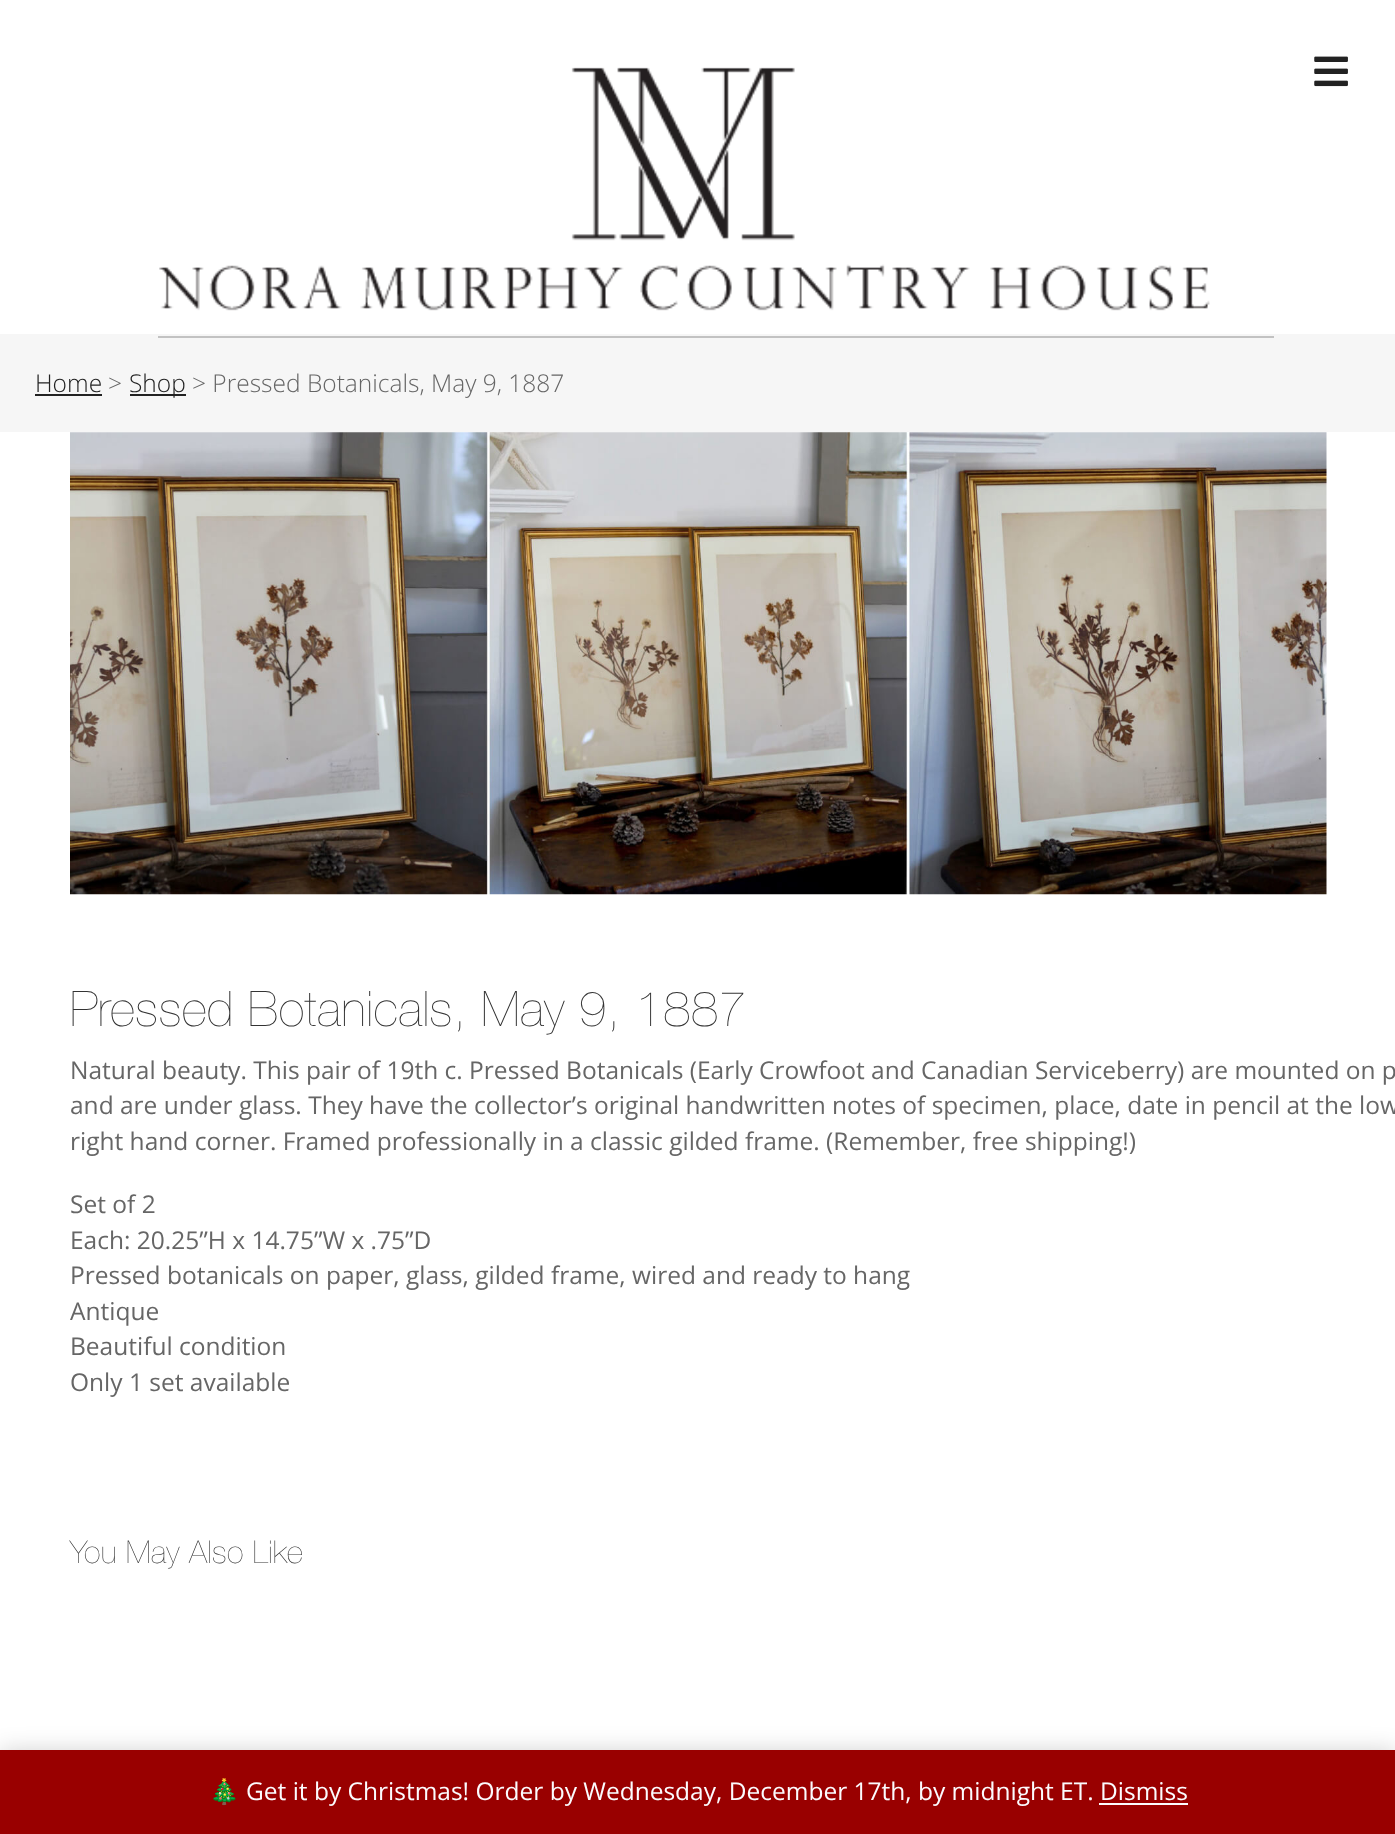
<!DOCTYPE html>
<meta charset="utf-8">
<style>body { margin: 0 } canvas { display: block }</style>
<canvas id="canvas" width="1395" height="1834"></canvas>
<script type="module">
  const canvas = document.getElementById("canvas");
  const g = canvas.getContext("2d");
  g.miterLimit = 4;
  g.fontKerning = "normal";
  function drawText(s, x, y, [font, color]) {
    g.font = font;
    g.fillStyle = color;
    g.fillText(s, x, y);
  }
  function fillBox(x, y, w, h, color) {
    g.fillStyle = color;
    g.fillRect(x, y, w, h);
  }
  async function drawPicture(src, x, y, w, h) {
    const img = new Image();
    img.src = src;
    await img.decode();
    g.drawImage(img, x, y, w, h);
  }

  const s1 = ["300 24.5px Open Sans", "#222222"];
  const s2 = ["300 24.5px Open Sans", "#666666"];
  const s3 = ["300 49px 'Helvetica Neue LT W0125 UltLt'", "#333333"];
  const s4 = ["24.5px Open Sans", "#666666"];
  const s5 = ["300 31.5px 'Helvetica Neue LT W0125 UltLt'", "#333333"];
  const s6 = ["24.5px Noto Color Emoji", "#FCFBFE"];
  const s7 = ["24.5px Open Sans", "#FCFBFE"];

  fillBox(0, 0, 1395, 1834, "#FFFFFF");
  await drawPicture("pic1.png", 159, 67, 1051, 244);
  fillBox(0, 334, 1395, 98, "#F6F6F6");
  fillBox(158, 336, 1116, 2, "#C2C2C2");
  await drawPicture("pic2.png", 1314, 56, 34, 31);
  drawText("Home", 35, 392, s1);
  fillBox(35, 394, 67, 2, "#222222");
  drawText(">", 108, 392, s2);
  fillBox(130, 394, 56, 2, "#222222");
  drawText("Shop", 129, 392, s1);
  drawText("> Pressed Botanicals, May 9, 1887", 192, 392, s2);
  await drawPicture("pic3.png", 70, 432, 1257, 463);
  g.letterSpacing = "0.6px";
  drawText("Pressed Botanicals, May 9, 1887", 70, 1026, s3);
  g.letterSpacing = "0px";
  drawText("Natural beauty. This pair of 19th c. Pressed Botanicals (Early Crowfoot and Canadian Serviceberry) are mounted on p", 70, 1079, s4);
  drawText("and are under glass. They have the collector’s original handwritten notes of specimen, place, date in pencil at the low", 70, 1114, s4);
  drawText("right hand corner. Framed professionally in a classic gilded frame. (Remember, free shipping!)", 70, 1150, s4);
  drawText("Set of 2", 70, 1213, s4);
  drawText("Each: 20.25”H x 14.75”W x .75”D", 70, 1249, s4);
  drawText("Pressed botanicals on paper, glass, gilded frame, wired and ready to hang", 70, 1284, s4);
  drawText("Antique", 70, 1320, s4);
  drawText("Beautiful condition", 70, 1355, s4);
  drawText("Only 1 set available", 70, 1391, s4);
  g.letterSpacing = "0.4px";
  drawText("You May Also Like", 70, 1563, s5);
  g.fillStyle = "rgba(0, 0, 0, 0.2)";
  g.filter = "blur(12px)";
  g.beginPath();
  g.rect(0, 1752, 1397, 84);
  g.fill();
  g.filter = "none";
  fillBox(0, 1750, 1395, 84, "#990000");
  g.letterSpacing = "0px";
  drawText("🎄", 209, 1800, s6);
  drawText("Get it by Christmas! Order by Wednesday, December 17th, by midnight ET. Dismiss", 246, 1800, s7);
  fillBox(1099, 1803, 89, 2, "#FCFBFE");
</script>
